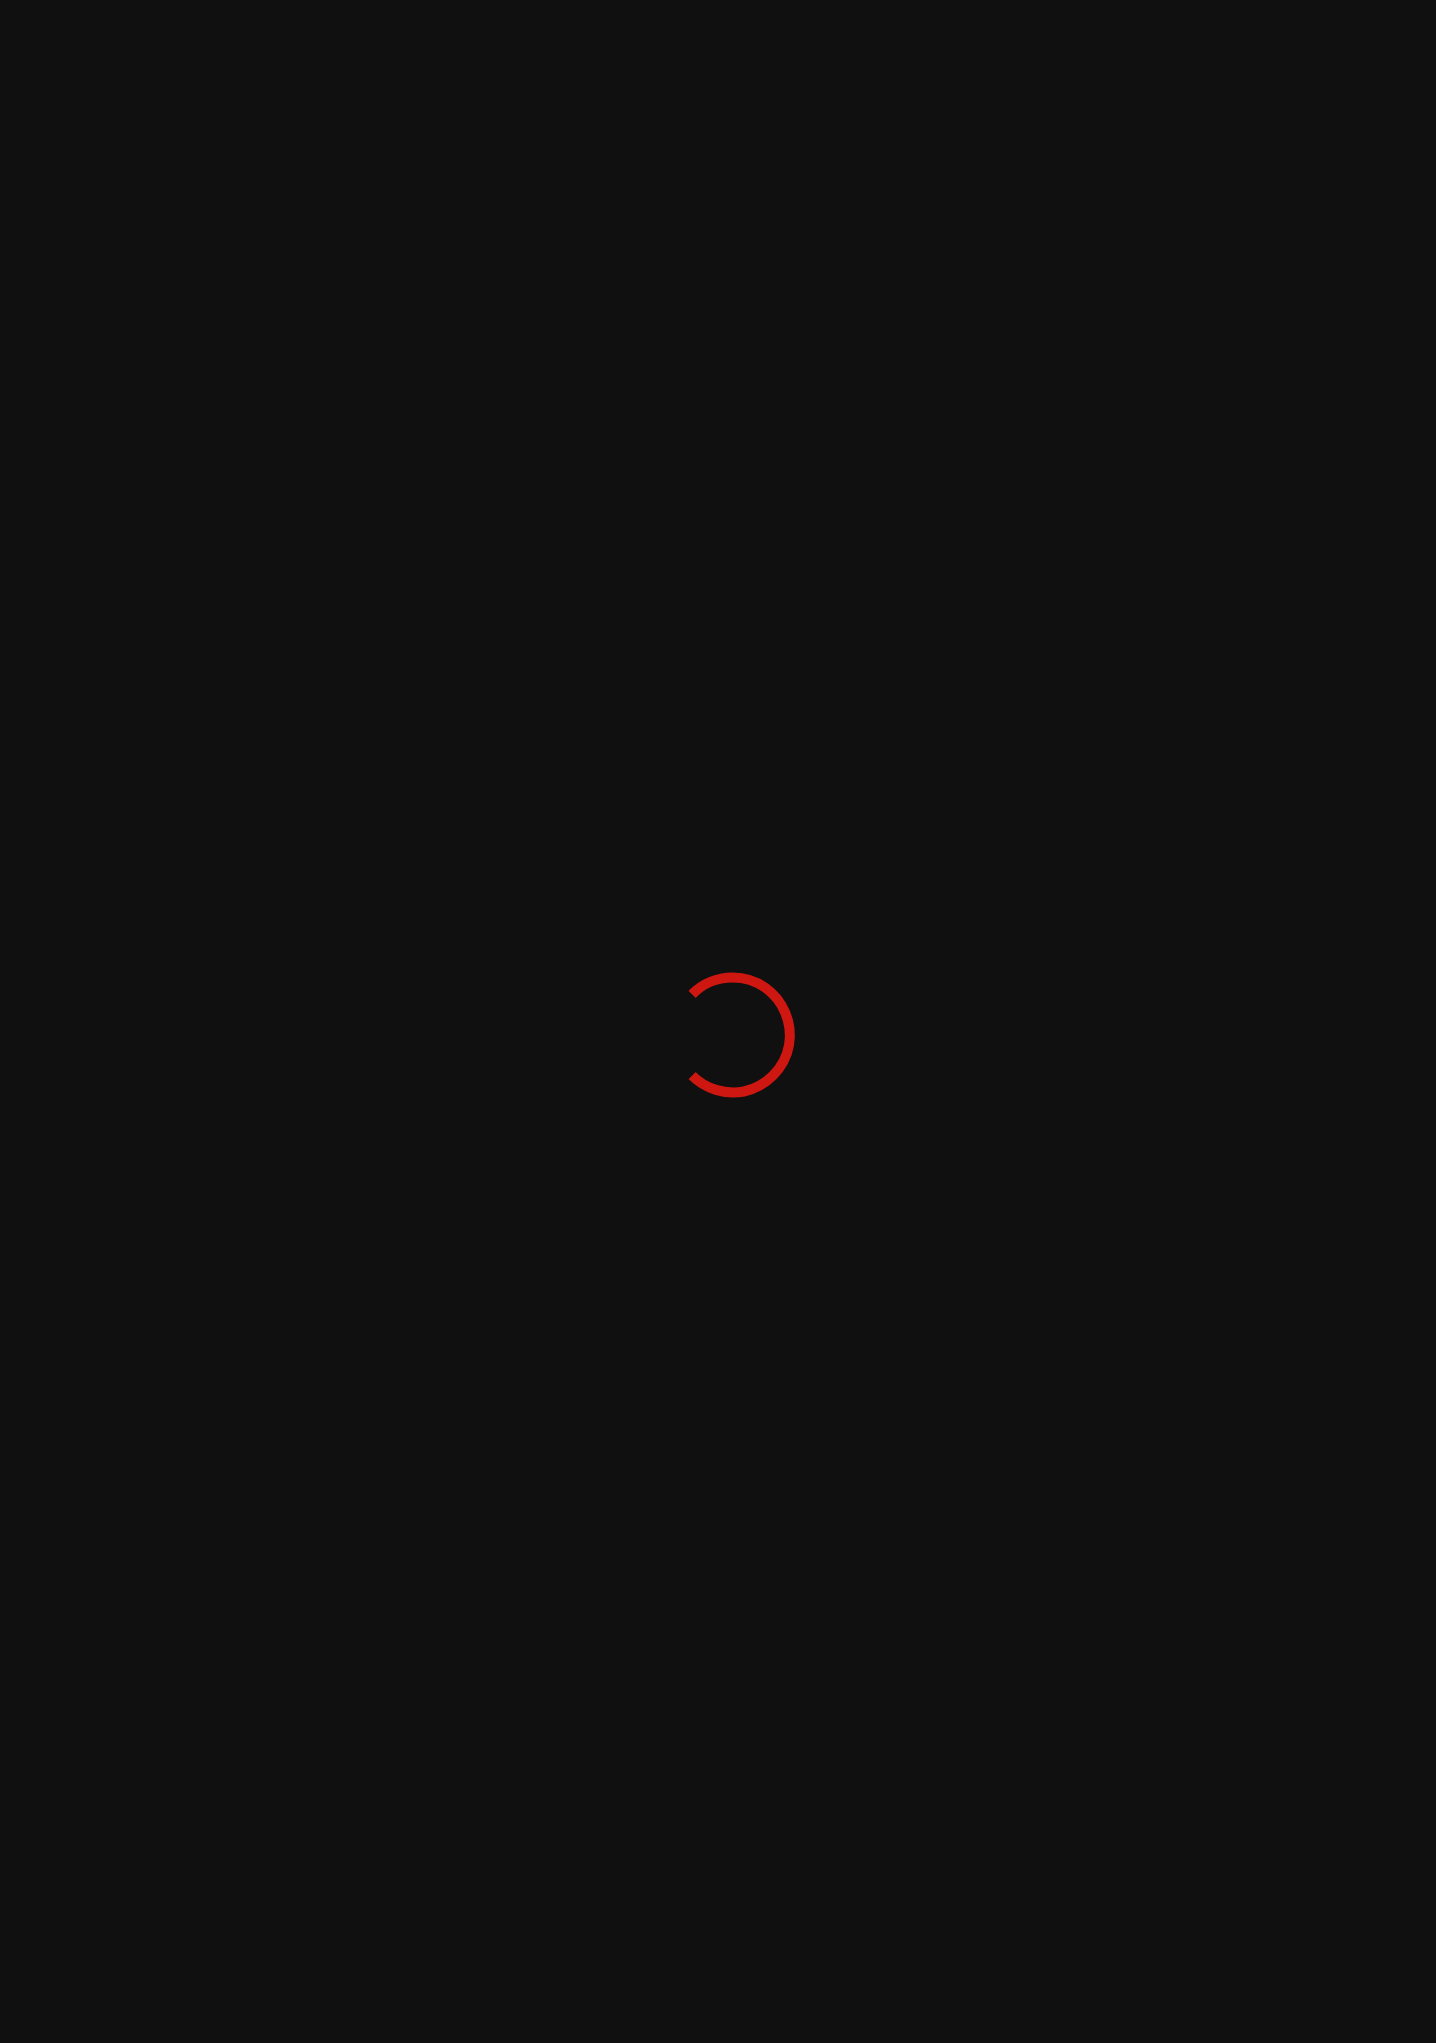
<!DOCTYPE html>
<meta charset="utf-8">
<style>body { margin: 0 } canvas { display: block }</style>
<canvas id="canvas" width="1436" height="2043"></canvas>
<script type="module">
  const canvas = document.getElementById("canvas");
  const g = canvas.getContext("2d");
  g.miterLimit = 4;
  g.fontKerning = "normal";
  function fillBox(x, y, w, h, color) {
    g.fillStyle = color;
    g.fillRect(x, y, w, h);
  }

  fillBox(0, 0, 1436, 2043, "#101010");
  g.beginPath();
  g.moveTo(692, 994.5);
  g.bezierCurveTo(702.5, 983.5, 717.5, 977.5, 732.5, 977.5);
  g.bezierCurveTo(783.5, 977.5, 809, 1039.5, 773, 1075.5);
  g.bezierCurveTo(765, 1083.5, 755, 1089, 744, 1091.5);
  g.bezierCurveTo(725, 1095, 705.5, 1089, 692, 1075.5);
  g.strokeStyle = "#CE1710";
  g.lineWidth = 10;
  g.stroke();
  g.beginPath();
  g.moveTo(692, 1075.5);
  g.bezierCurveTo(669.5, 1053.5, 669.5, 1016.5, 692, 994.5);
  g.strokeStyle = "#101010";
  g.stroke();
</script>
